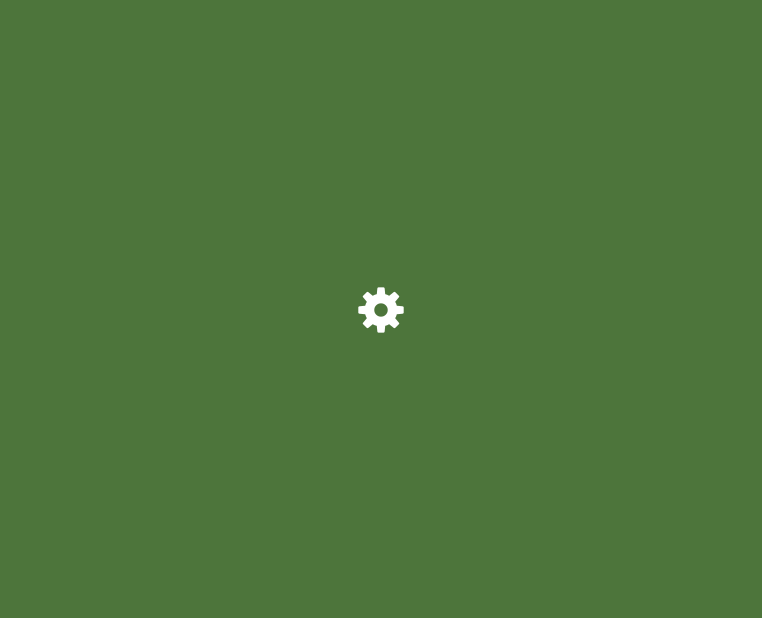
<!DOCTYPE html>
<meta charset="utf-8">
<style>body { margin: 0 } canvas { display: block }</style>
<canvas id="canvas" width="762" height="618"></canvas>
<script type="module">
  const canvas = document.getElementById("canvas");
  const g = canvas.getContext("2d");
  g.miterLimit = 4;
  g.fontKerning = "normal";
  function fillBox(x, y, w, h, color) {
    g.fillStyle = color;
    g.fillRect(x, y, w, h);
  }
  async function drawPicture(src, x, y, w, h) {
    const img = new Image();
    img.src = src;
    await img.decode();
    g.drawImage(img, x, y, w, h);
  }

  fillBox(0, 0, 762, 618, "#4D753B");
  await drawPicture("pic1.png", 358, 287, 46, 46);
</script>
